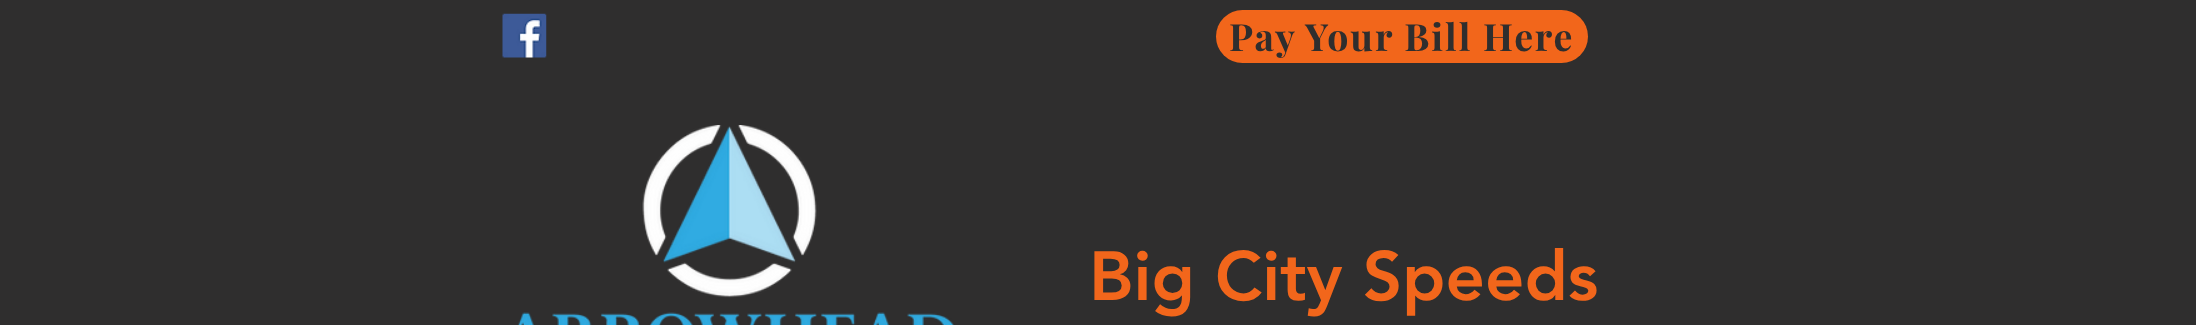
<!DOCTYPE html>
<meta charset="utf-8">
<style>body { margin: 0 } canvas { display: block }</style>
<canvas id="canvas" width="2196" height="325"></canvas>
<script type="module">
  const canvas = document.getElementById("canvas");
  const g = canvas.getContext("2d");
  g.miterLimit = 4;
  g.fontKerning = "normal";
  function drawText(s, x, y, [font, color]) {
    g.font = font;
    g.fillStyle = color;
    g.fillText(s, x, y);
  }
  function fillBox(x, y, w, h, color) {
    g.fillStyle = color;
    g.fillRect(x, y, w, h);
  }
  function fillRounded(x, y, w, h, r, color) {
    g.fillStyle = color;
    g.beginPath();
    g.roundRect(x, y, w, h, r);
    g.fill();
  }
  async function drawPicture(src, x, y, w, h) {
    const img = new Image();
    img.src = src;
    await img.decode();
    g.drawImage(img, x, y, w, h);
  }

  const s1 = ["bold 37.5px Playfair Display", "#2F2E2E"];
  const s2 = ["900 68.75px 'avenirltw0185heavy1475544'", "#F2661B"];

  fillBox(0, 0, 2196, 325, "#2F2E2E");
  await drawPicture("pic1.png", 502, 13, 45, 45);
  fillRounded(1216, 10, 372, 53, 26.5, "#F2661B");
  g.letterSpacing = "1.9px";
  drawText("Pay Your Bill Here", 1229, 51, s1);
  await drawPicture("pic2.png", 518, 125, 436, 200);
  g.letterSpacing = "0px";
  drawText("Big City Speeds", 1089, 300, s2);
</script>
